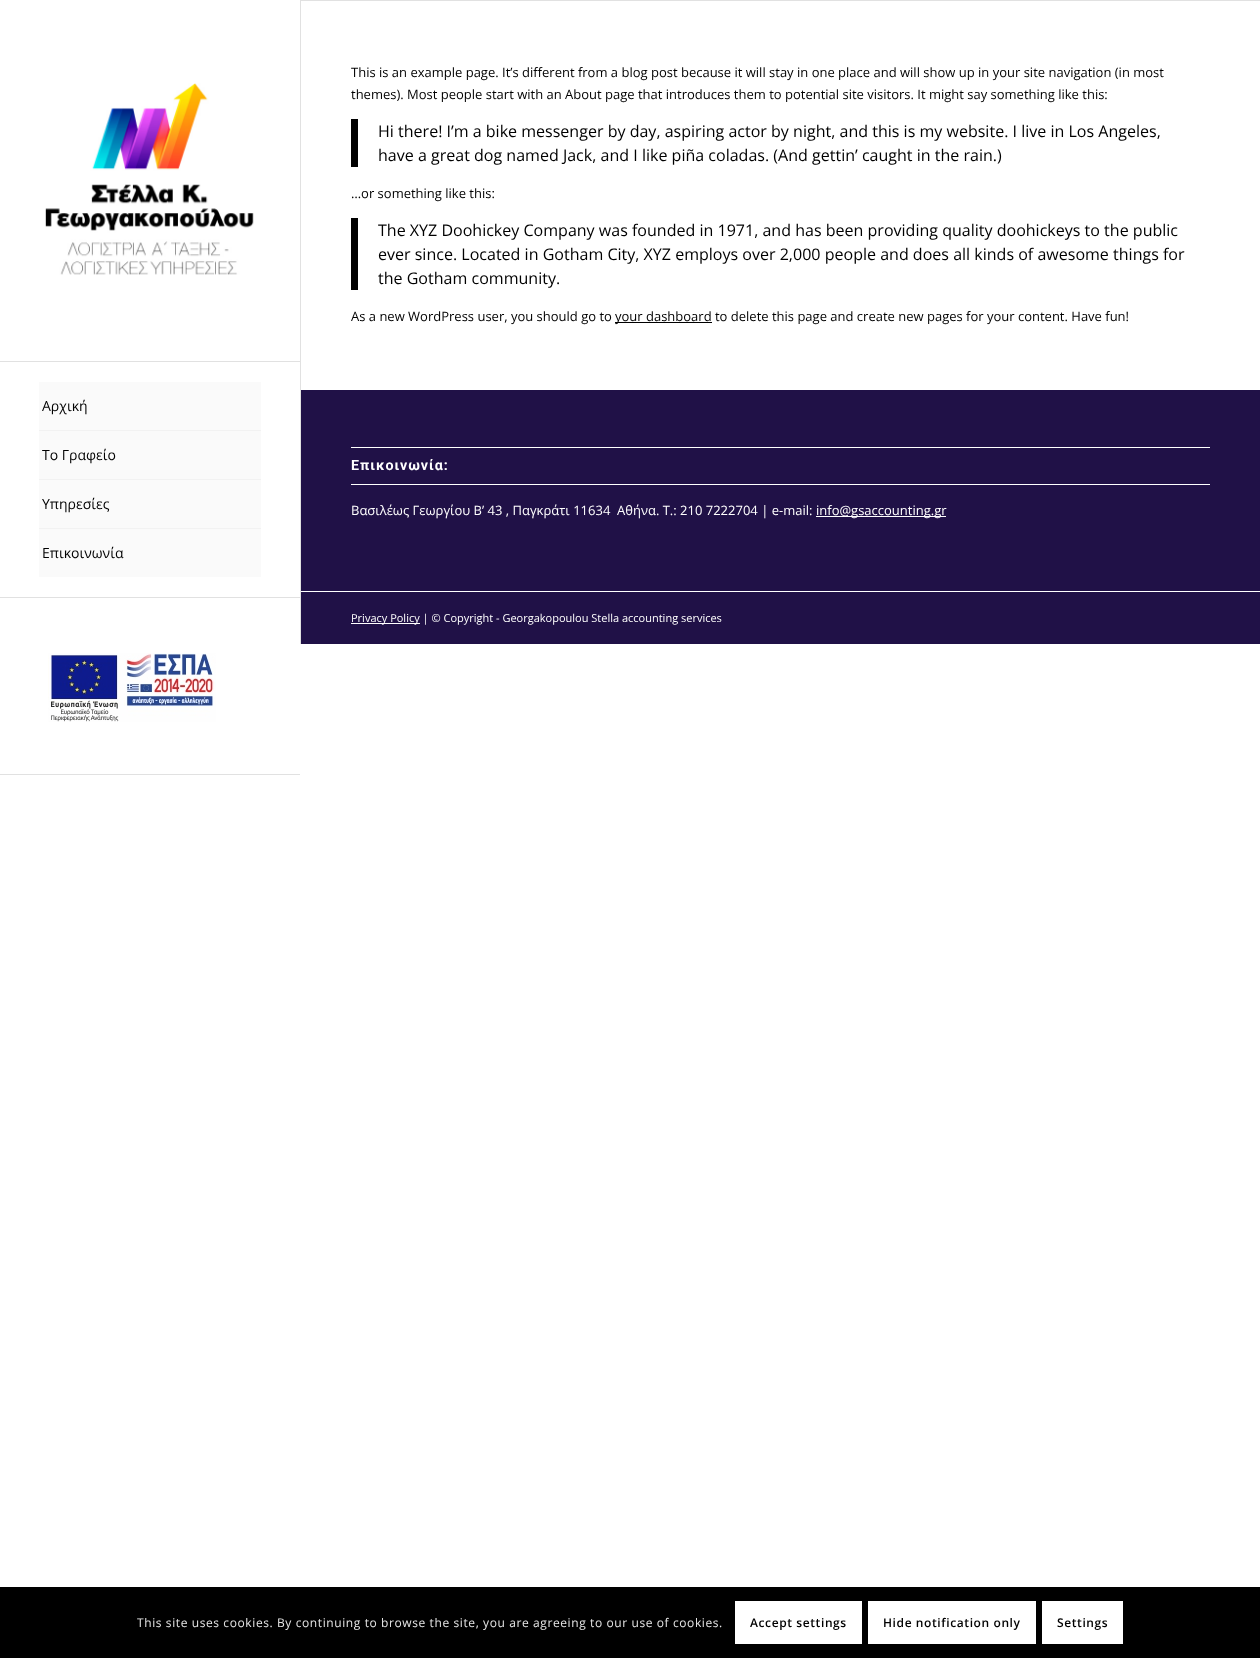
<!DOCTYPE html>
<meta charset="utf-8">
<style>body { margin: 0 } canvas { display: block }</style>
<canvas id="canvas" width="1260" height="1658"></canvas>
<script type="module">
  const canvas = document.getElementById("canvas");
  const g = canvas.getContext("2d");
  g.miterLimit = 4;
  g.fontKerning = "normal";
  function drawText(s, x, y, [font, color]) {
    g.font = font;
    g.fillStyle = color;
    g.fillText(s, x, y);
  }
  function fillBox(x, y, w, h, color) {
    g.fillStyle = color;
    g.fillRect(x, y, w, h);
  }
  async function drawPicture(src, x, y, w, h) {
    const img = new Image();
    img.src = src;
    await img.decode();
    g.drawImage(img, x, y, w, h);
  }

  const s1 = ["14px Open Sans", "#000000"];
  const s2 = ["13px Open Sans", "#000000"];
  const s3 = ["16.05px Open Sans", "#000000"];
  const s4 = ["bold 14.25px Roboto", "#FFFFFF"];
  const s5 = ["13px Open Sans", "#FFFFFF"];
  const s6 = ["11px Open Sans", "#FFFFFF"];
  const s7 = ["12px Open Sans", "#E6E6E6"];
  const s8 = ["600 12px Open Sans", "#000000"];

  fillBox(0, 0, 1260, 1658, "#FFFFFF");
  fillBox(0, 774, 300, 1, "#E1E1E1");
  fillBox(0, 361, 300, 1, "#E1E1E1");
  await drawPicture("pic1.png", 45, 83, 209, 192);
  fillBox(39, 382, 222, 48, "#FAFAFA");
  fillBox(39, 430, 222, 1, "#F2F2F2");
  drawText("Αρχική", 42, 411, s1);
  fillBox(39, 431, 222, 48, "#FAFAFA");
  fillBox(39, 479, 222, 1, "#F2F2F2");
  drawText("Το Γραφείο", 42, 460, s1);
  fillBox(39, 480, 222, 48, "#FAFAFA");
  fillBox(39, 528, 222, 1, "#F2F2F2");
  drawText("Υπηρεσίες", 42, 509, s1);
  fillBox(39, 529, 222, 48, "#FAFAFA");
  drawText("Επικοινωνία", 42, 558, s1);
  fillBox(0, 597, 300, 1, "#E1E1E1");
  await drawPicture("pic2.png", 48, 653, 168, 69);
  fillBox(300, 0, 1, 644, "#E1E1E1");
  fillBox(301, 0, 959, 1, "#E1E1E1");
  drawText("This is an example page. It’s different from a blog post because it will stay in one place and will show up in your site navigation (in most", 351, 77, s2);
  drawText("themes). Most people start with an About page that introduces them to potential site visitors. It might say something like this:", 351, 99, s2);
  fillBox(351, 119, 7, 48, "#000000");
  drawText("Hi there! I’m a bike messenger by day, aspiring actor by night, and this is my website. I live in Los Angeles,", 378, 137, s3);
  drawText("have a great dog named Jack, and I like piña coladas. (And gettin’ caught in the rain.)", 378, 161, s3);
  drawText("…or something like this:", 351, 198, s2);
  fillBox(351, 218, 7, 72, "#000000");
  drawText("The XYZ Doohickey Company was founded in 1971, and has been providing quality doohickeys to the public", 378, 236, s3);
  drawText("ever since. Located in Gotham City, XYZ employs over 2,000 people and does all kinds of awesome things for", 378, 260, s3);
  drawText("the Gotham community.", 378, 284, s3);
  drawText("As a new WordPress user, you should go to", 351, 321, s2);
  fillBox(615, 322, 97, 1, "#000000");
  drawText("your dashboard to delete this page and create new pages for your content. Have fun!", 615, 321, s2);
  fillBox(301, 390, 959, 201, "#201147");
  fillBox(351, 447, 859, 1, "#FFFFFF");
  fillBox(351, 484, 859, 1, "#FFFFFF");
  g.letterSpacing = "1px";
  drawText("Επικοινωνία:", 351, 470, s4);
  g.letterSpacing = "0px";
  drawText("Βασιλέως Γεωργίου Β’ 43 , Παγκράτι 11634  Αθήνα. Τ.: 210 7222704 | e-mail:", 351, 515, s5);
  fillBox(816, 516, 130, 1, "#FFFFFF");
  drawText("info@gsaccounting.gr", 816, 515, s5);
  fillBox(301, 592, 959, 52, "#201147");
  fillBox(351, 623, 69, 1, "#FFFFFF");
  drawText("Privacy Policy | © Copyright - Georgakopoulou Stella accounting services", 351, 622, s6);
  fillBox(0, 1587, 1260, 71, "#000000");
  g.letterSpacing = "0.6px";
  drawText("This site uses cookies. By continuing to browse the site, you are agreeing to our use of cookies.", 137, 1627, s7);
  fillBox(735, 1601, 127, 43, "#FFFFFF");
  drawText("Accept settings", 750, 1627, s8);
  fillBox(868, 1601, 168, 43, "#FFFFFF");
  drawText("Hide notification only", 883, 1627, s8);
  fillBox(1042, 1601, 81, 43, "#FFFFFF");
  drawText("Settings", 1057, 1627, s8);
</script>
